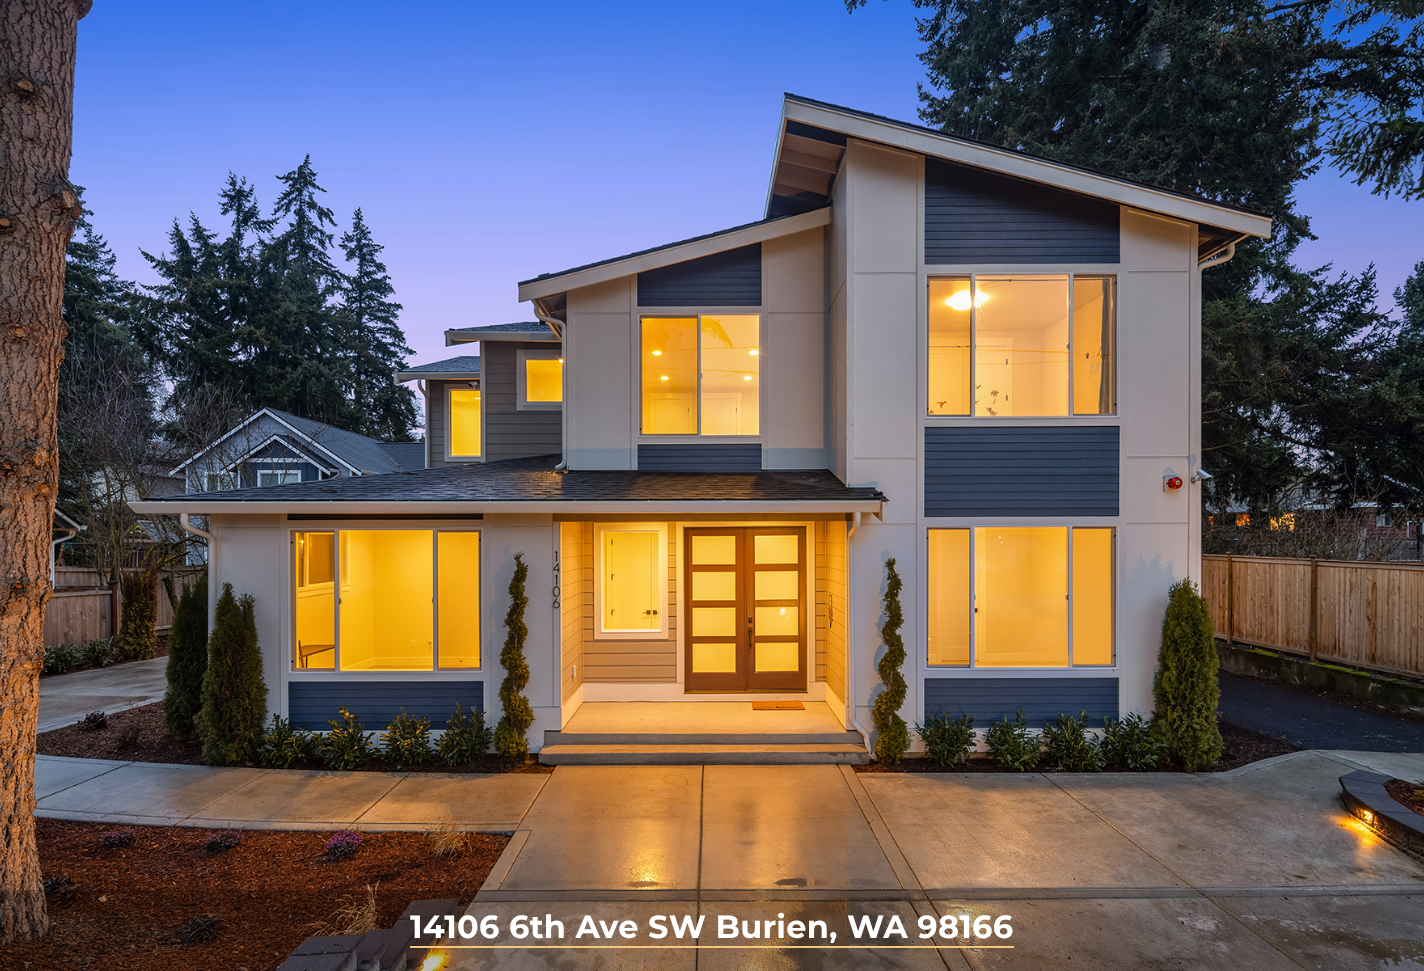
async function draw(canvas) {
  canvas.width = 1424
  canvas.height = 971
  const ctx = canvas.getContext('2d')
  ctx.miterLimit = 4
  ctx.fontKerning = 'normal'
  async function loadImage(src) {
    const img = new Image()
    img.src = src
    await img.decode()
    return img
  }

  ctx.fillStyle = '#fff'
  ctx.fillRect(0, 0, 1424, 971)
  ctx.drawImage(await loadImage('image0.png'), 0, 0, 1424, 971)
  ctx.fillStyle = '#00000040'
  ctx.fillRect(0, 890, 1424, 81)
  ctx.letterSpacing = '0.25px'
  ctx.font = 'bold 32px Montserrat'
  ctx.fillStyle = '#fff'
  ctx.fillText('14106 6th Ave SW Burien, WA 98166', 410, 938)
  ctx.fillStyle = '#f4c87c'
  ctx.fillRect(410, 946, 604, 2)
}

draw(document.querySelector('canvas'))
